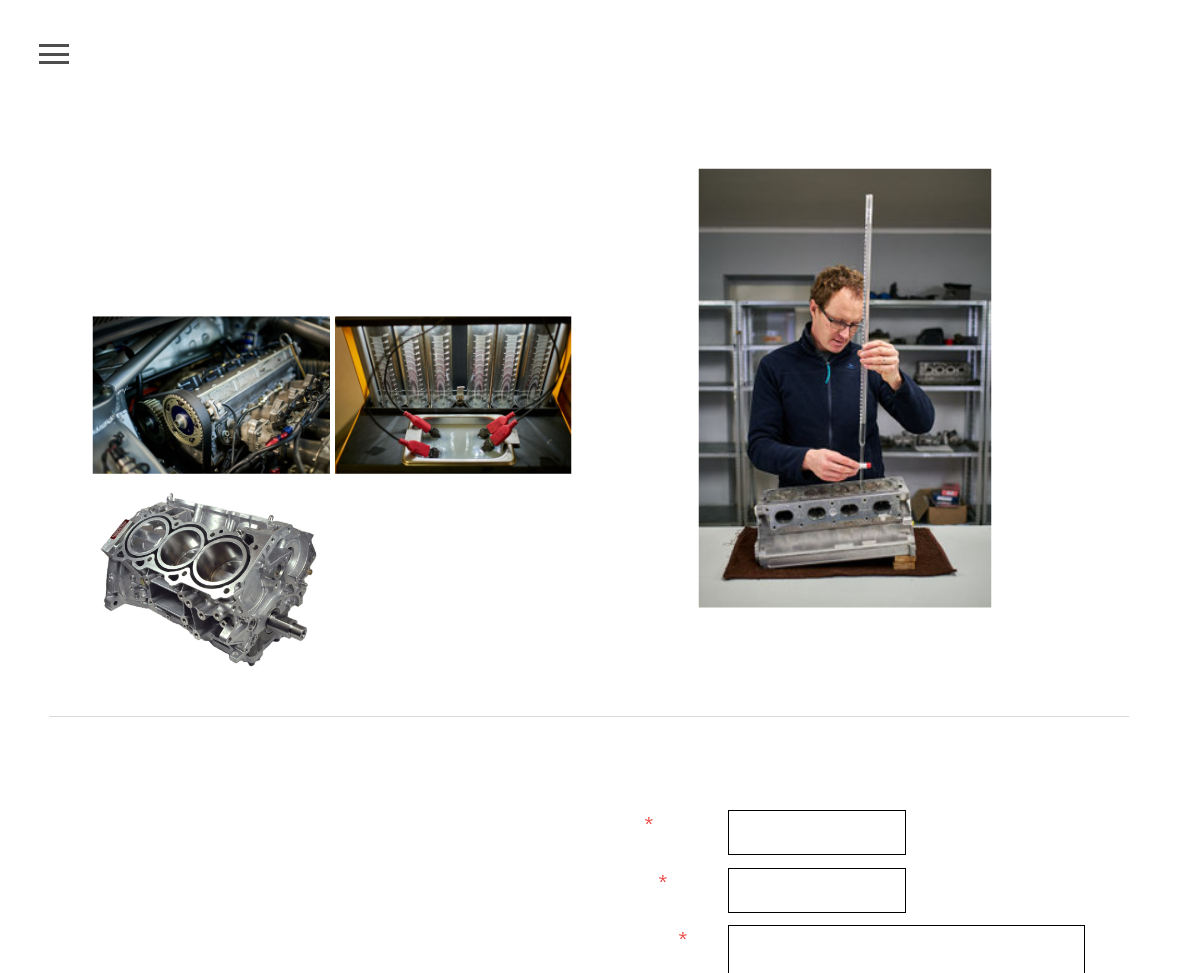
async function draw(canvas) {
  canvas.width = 1177
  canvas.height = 973
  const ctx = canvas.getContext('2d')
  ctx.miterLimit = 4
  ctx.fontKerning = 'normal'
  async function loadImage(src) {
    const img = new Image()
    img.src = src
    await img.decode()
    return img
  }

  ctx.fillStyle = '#fff'
  ctx.fillRect(0, 0, 1177, 973)
  ctx.fillStyle = '#4e4e4e'
  ctx.fillRect(39, 53, 30, 3)
  ctx.fillRect(39, 44, 30, 3)
  ctx.fillRect(39, 61, 30, 3)
  ctx.drawImage(await loadImage('image0.png'), 92, 316, 238, 158)
  ctx.drawImage(await loadImage('image1.png'), 335, 316, 237, 158)
  ctx.drawImage(await loadImage('image2.png'), 100, 493, 217, 176)
  ctx.drawImage(await loadImage('image3.png'), 698, 168, 294, 440)
  ctx.fillStyle = '#d9d9d9'
  ctx.fillRect(49, 716, 1080, 1)
  ctx.font = '20px Abel'
  ctx.fillStyle = '#eb433e'
  ctx.fillText('*', 644, 831)
  ctx.strokeStyle = '#000'
  ctx.strokeRect(728.5, 810.5, 177, 44)
  ctx.fillText('*', 658, 889)
  ctx.strokeRect(728.5, 868.5, 177, 44)
  ctx.fillText('*', 678, 946)
  ctx.strokeRect(728.5, 925.5, 356, 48)
}

draw(document.querySelector('canvas'))
